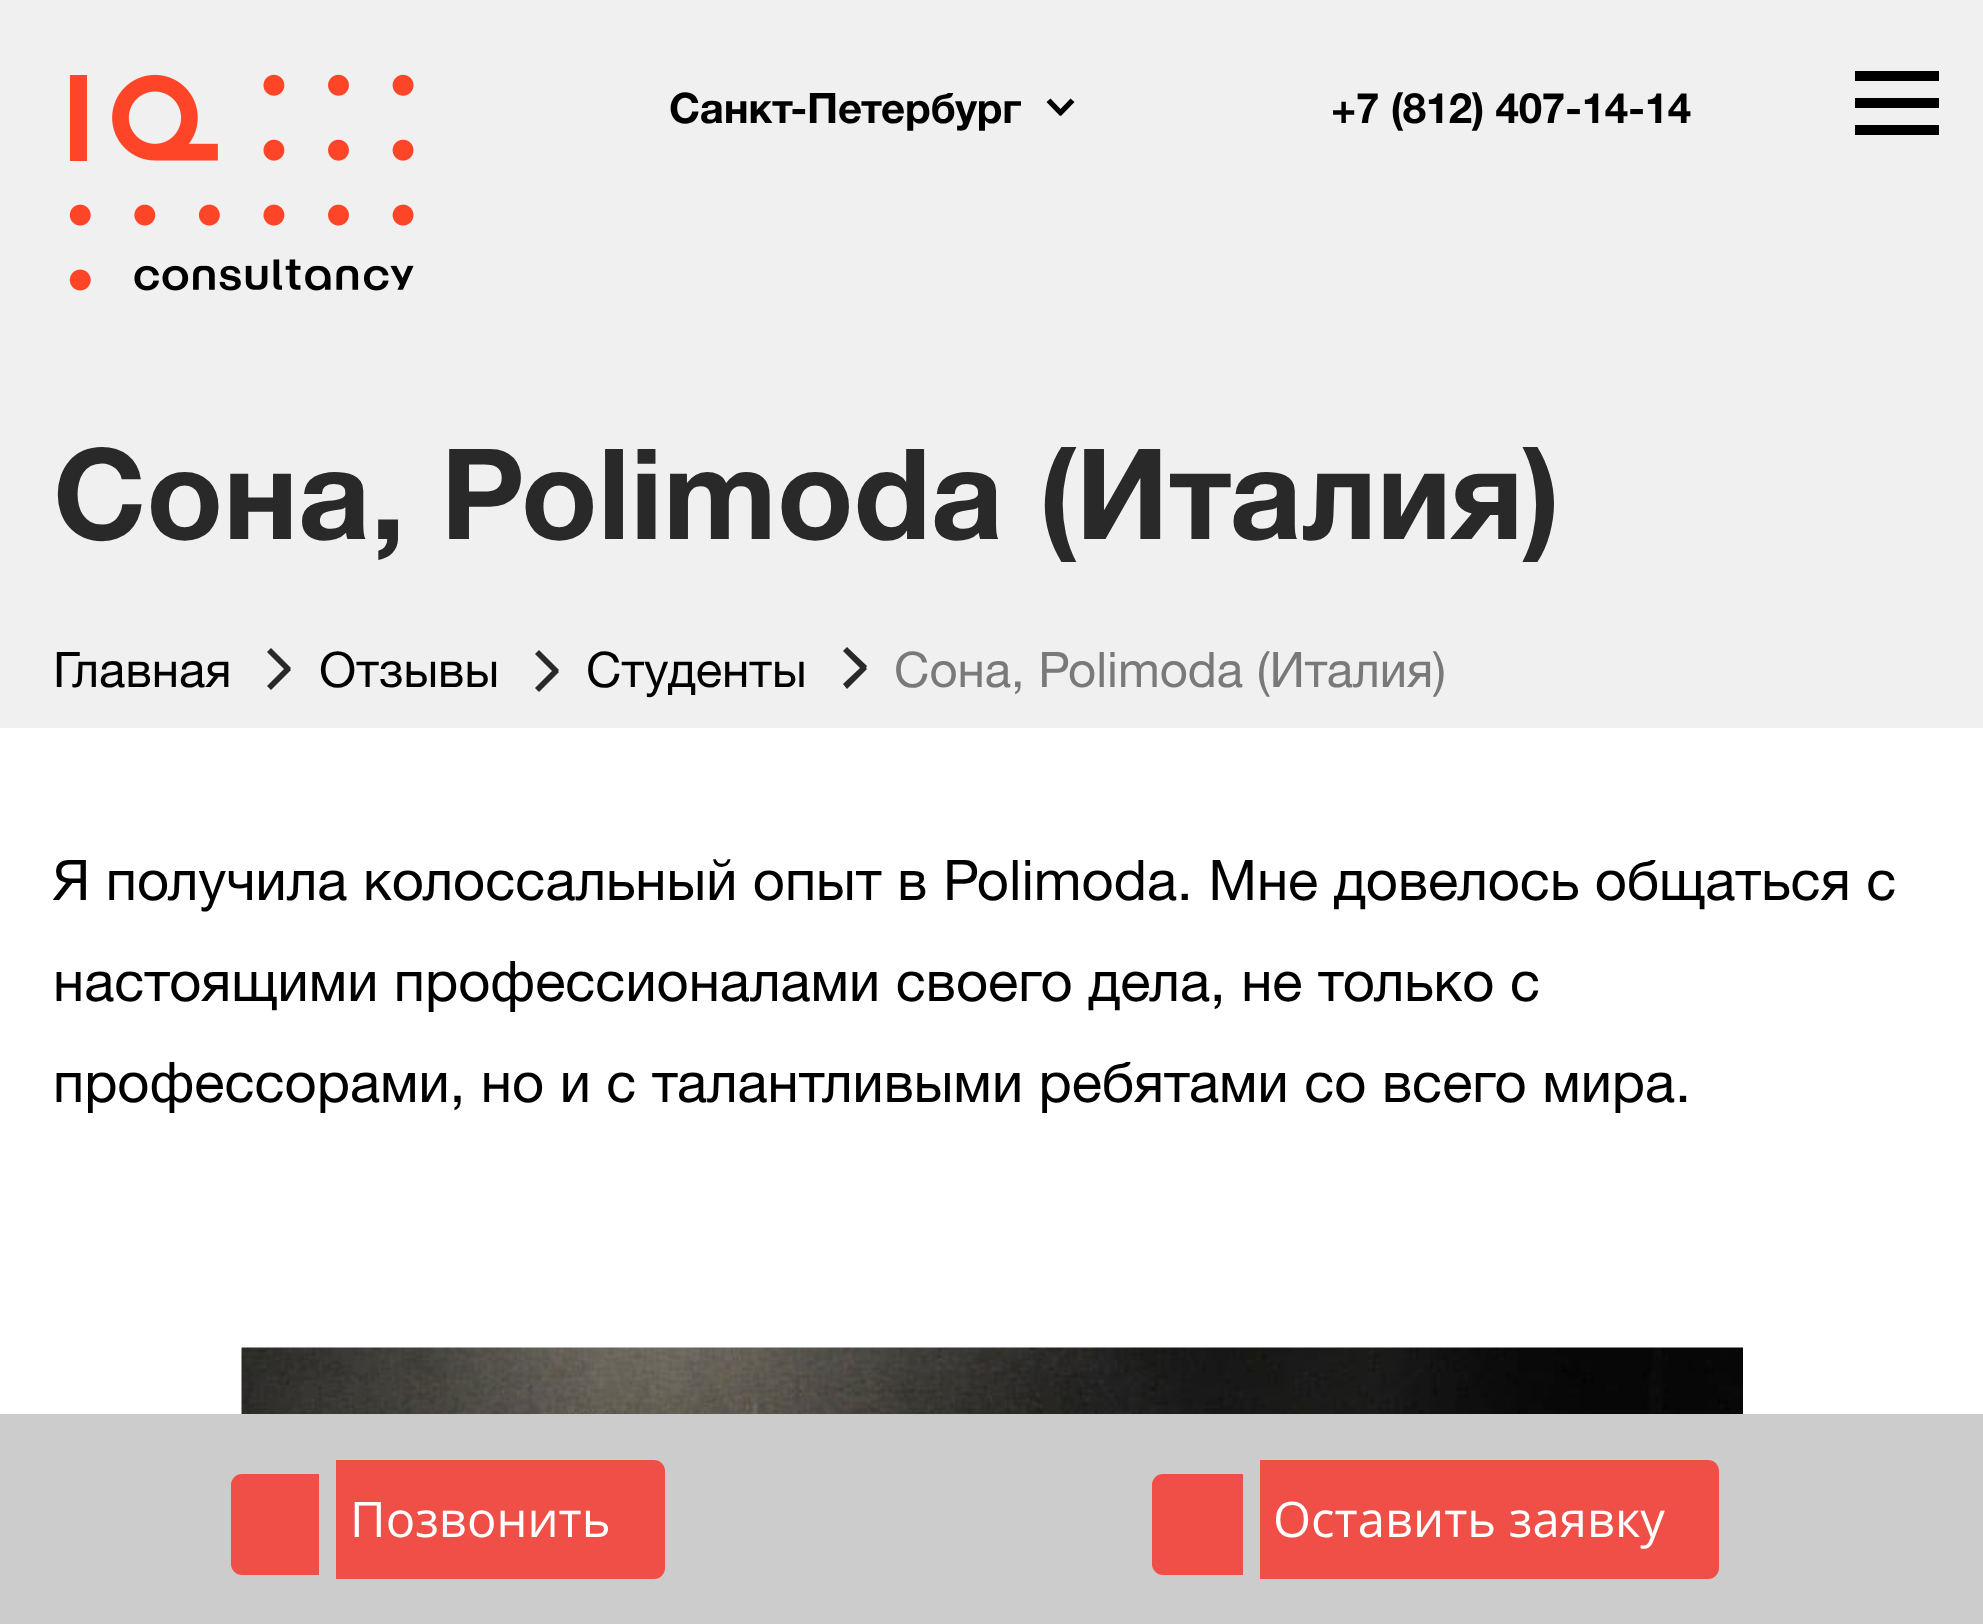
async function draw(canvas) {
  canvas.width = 1983
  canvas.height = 1624
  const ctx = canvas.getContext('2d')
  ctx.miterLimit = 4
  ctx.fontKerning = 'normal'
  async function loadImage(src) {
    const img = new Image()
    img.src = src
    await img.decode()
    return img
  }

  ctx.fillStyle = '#fff'
  ctx.fillRect(0, 0, 1983, 1624)
  ctx.fillStyle = '#f0f0f0'
  ctx.fillRect(0, 0, 1983, 728)
  ctx.drawImage(await loadImage('image0.png'), 69, 74, 345, 217)
  ctx.letterSpacing = '-0.25px'
  ctx.font = 'bold 42px "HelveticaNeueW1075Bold"'
  ctx.fillStyle = '#000'
  ctx.fillText('Санкт-Петербург', 669, 123)
  ctx.beginPath()
  ctx.moveTo(1074.5, 102)
  ctx.lineTo(1070.5, 98.5)
  ctx.lineTo(1060.5, 109)
  ctx.lineTo(1050.5, 98.5)
  ctx.lineTo(1046.5, 102)
  ctx.lineTo(1060, 116)
  ctx.lineTo(1060.5, 115.5)
  ctx.lineTo(1061, 116)
  ctx.closePath()
  ctx.fill()
  ctx.fillText('+7 (812) 407-14-14', 1331, 123)
  ctx.beginPath()
  ctx.moveTo(1855, 108)
  ctx.lineTo(1939, 108)
  ctx.lineTo(1939, 98)
  ctx.lineTo(1855, 98)
  ctx.closePath()
  ctx.moveTo(1855, 71)
  ctx.lineTo(1855, 81)
  ctx.lineTo(1939, 81)
  ctx.lineTo(1939, 71)
  ctx.closePath()
  ctx.moveTo(1855, 135)
  ctx.lineTo(1939, 135)
  ctx.lineTo(1939, 125)
  ctx.lineTo(1855, 125)
  ctx.closePath()
  ctx.fill()
  ctx.letterSpacing = '0px'
  ctx.font = 'bold 126px "HelveticaNeueW1075Bold"'
  ctx.fillStyle = '#292929'
  ctx.fillText('Сона, Polimoda (Италия)', 53, 539)
  ctx.font = '49px "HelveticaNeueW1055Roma"'
  ctx.fillStyle = '#000'
  ctx.fillText('Главная', 53, 687)
  ctx.fillStyle = '#292929'
  ctx.beginPath()
  ctx.moveTo(271, 648)
  ctx.lineTo(267, 652)
  ctx.lineTo(284, 669)
  ctx.lineTo(267, 686)
  ctx.lineTo(271, 690)
  ctx.lineTo(291, 670)
  ctx.lineTo(290, 669)
  ctx.lineTo(291, 668)
  ctx.closePath()
  ctx.fill()
  ctx.fillStyle = '#000'
  ctx.fillText('Отзывы', 319, 687)
  ctx.fillStyle = '#292929'
  ctx.beginPath()
  ctx.moveTo(539, 650)
  ctx.lineTo(535, 654)
  ctx.lineTo(552, 671)
  ctx.lineTo(535, 688)
  ctx.lineTo(539, 692)
  ctx.lineTo(559, 672)
  ctx.lineTo(558, 671)
  ctx.lineTo(559, 670)
  ctx.closePath()
  ctx.fill()
  ctx.fillStyle = '#000'
  ctx.fillText('Студенты', 586, 687)
  ctx.fillStyle = '#292929'
  ctx.beginPath()
  ctx.moveTo(847, 647)
  ctx.lineTo(843, 651)
  ctx.lineTo(860, 668)
  ctx.lineTo(843, 684)
  ctx.lineTo(847, 689)
  ctx.lineTo(867, 669)
  ctx.lineTo(866, 668)
  ctx.lineTo(867, 666)
  ctx.closePath()
  ctx.fill()
  ctx.fillStyle = '#797979'
  ctx.fillText('Сона, Polimoda (Италия)', 894, 687)
  ctx.font = '56px "HelveticaNeueW1055Roma"'
  ctx.fillStyle = '#000'
  ctx.fillText('Я получила колоссальный опыт в Polimoda. Мне довелось общаться с', 53, 900)
  ctx.fillText('настоящими профессионалами своего дела, не только с', 53, 1001)
  ctx.fillText('профессорами, но и с талантливыми ребятами со всего мира.', 53, 1102)
  ctx.drawImage(await loadImage('image1.png'), 241, 1347, 1502, 67)
  ctx.fillStyle = '#ccc'
  ctx.fillRect(0, 1414, 1983, 210)
  ctx.fillStyle = '#ef4f47'
  ctx.beginPath()
  ctx.roundRect(350, 1460, 315, 119, [0, 11, 11, 0])
  ctx.fill()
  ctx.font = '49px Open Sans'
  ctx.fillStyle = '#fff'
  ctx.fillText('Позвонить', 350, 1537)
  ctx.fillStyle = '#ef4f47'
  ctx.beginPath()
  ctx.roundRect(231, 1474, 88, 101, [11, 0, 0, 11])
  ctx.fill()
  ctx.fillRect(336, 1460, 14, 119)
  ctx.beginPath()
  ctx.roundRect(1274, 1460, 445, 119, [0, 11, 11, 0])
  ctx.fill()
  ctx.fillStyle = '#fff'
  ctx.fillText('Оставить заявку', 1273, 1537)
  ctx.fillStyle = '#ef4f47'
  ctx.beginPath()
  ctx.roundRect(1152, 1474, 91, 101, [11, 0, 0, 11])
  ctx.fill()
  ctx.fillRect(1260, 1460, 14, 119)
}

draw(document.querySelector('canvas'))
